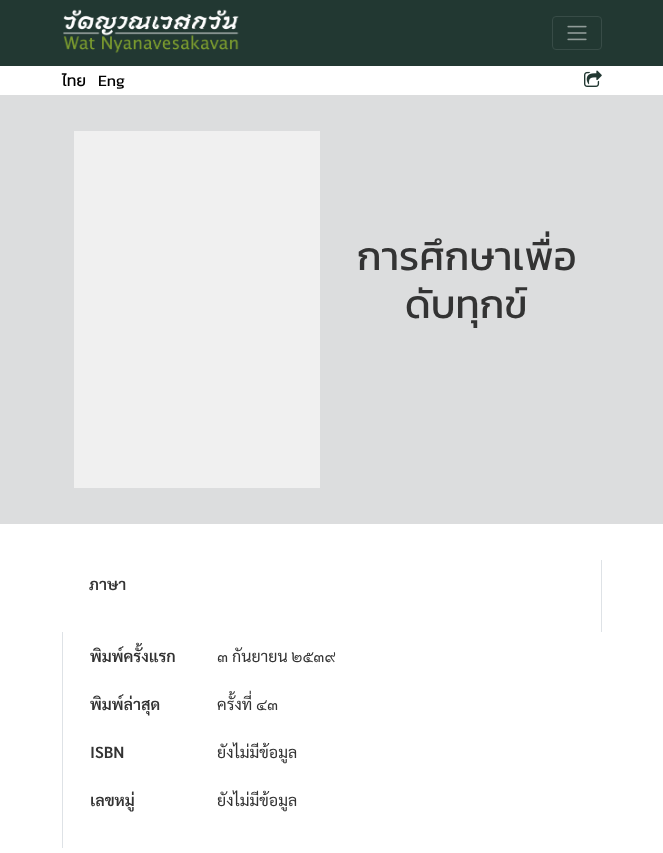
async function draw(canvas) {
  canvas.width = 663
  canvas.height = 853
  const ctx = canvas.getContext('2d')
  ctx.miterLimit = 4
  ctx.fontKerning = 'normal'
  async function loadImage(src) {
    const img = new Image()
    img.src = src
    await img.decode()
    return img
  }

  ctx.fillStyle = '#fff'
  ctx.fillRect(0, 0, 663, 853)
  ctx.fillStyle = '#223832'
  ctx.fillRect(0, 0, 663, 66)
  ctx.drawImage(await loadImage('image0.png'), 63, 9, 176, 44)
  ctx.beginPath()
  ctx.roundRect(552.5, 16.5, 49, 33, 3.5)
  ctx.strokeStyle = '#384c47'
  ctx.stroke()
  ctx.drawImage(await loadImage('image1.png'), 567, 25, 20, 16)
  ctx.font = '16px Kanit'
  ctx.fillStyle = '#000'
  ctx.fillText('ไทย', 62, 86)
  ctx.fillText('Eng', 98, 86)
  ctx.drawImage(await loadImage('image2.png'), 584, 70, 18, 17)
  ctx.fillStyle = '#dcddde'
  ctx.fillRect(0, 95, 663, 429)
  ctx.fillStyle = '#f0f0f0'
  ctx.fillRect(74, 131, 246, 357)
  ctx.font = '40px Kanit'
  ctx.fillStyle = '#333'
  ctx.fillText('การศึกษาเพื่อ', 357, 270)
  ctx.fillText('ดับทุกข์', 405, 318)
  ctx.fillStyle = '#dee2e6'
  ctx.fillRect(601, 560, 1, 72)
  ctx.font = '600 16px Sarabun'
  ctx.fillStyle = '#333'
  ctx.fillText('ภาษา', 89, 590)
  ctx.fillStyle = '#dee2e6'
  ctx.fillRect(62, 632, 1, 216)
  ctx.fillStyle = '#333'
  ctx.fillText('พิมพ์ครั้งแรก', 90, 662)
  ctx.font = '16px Sarabun'
  ctx.fillText('๓ กันยายน ๒๕๓๙', 217, 662)
  ctx.font = '600 16px Sarabun'
  ctx.fillText('พิมพ์ล่าสุด', 90, 710)
  ctx.font = '16px Sarabun'
  ctx.fillText('ครั้งที่ ๔๓', 217, 710)
  ctx.font = '600 16px Sarabun'
  ctx.fillText('ISBN', 90, 758)
  ctx.font = '16px Sarabun'
  ctx.fillText('ยังไม่มีข้อมูล', 217, 758)
  ctx.font = '600 16px Sarabun'
  ctx.fillText('เลขหมู่', 90, 806)
  ctx.font = '16px Sarabun'
  ctx.fillText('ยังไม่มีข้อมูล', 217, 806)
}

draw(document.querySelector('canvas'))
